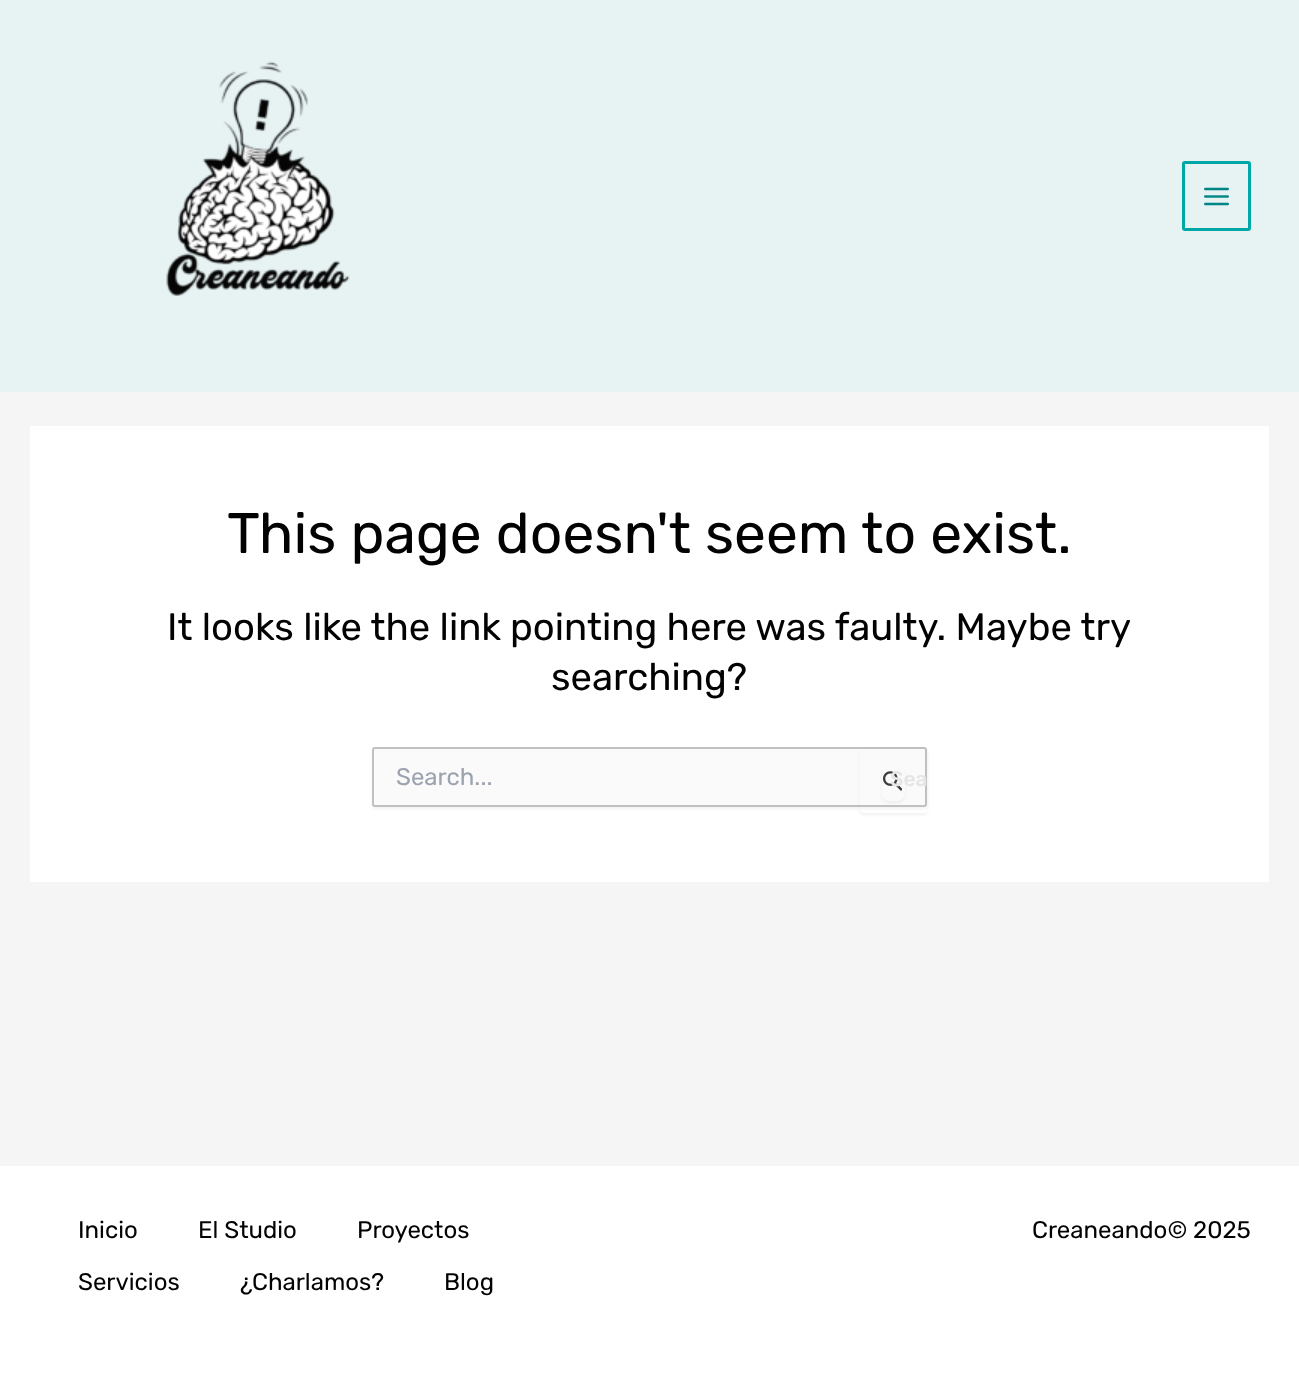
async function draw(canvas) {
  canvas.width = 1299
  canvas.height = 1379
  const ctx = canvas.getContext('2d')
  ctx.miterLimit = 4
  ctx.fontKerning = 'normal'
  async function loadImage(src) {
    const img = new Image()
    img.src = src
    await img.decode()
    return img
  }

  ctx.fillStyle = '#f5f5f5'
  ctx.fillRect(0, 0, 1299, 1379)
  ctx.fillStyle = '#e7f2f3'
  ctx.fillRect(0, 0, 1299, 392)
  ctx.drawImage(await loadImage('image0.png'), 166, 61, 184, 235)
  ctx.beginPath()
  ctx.roundRect(1183.5, 162.5, 66, 67, 1.5)
  ctx.strokeStyle = '#00a7a7'
  ctx.lineWidth = 3
  ctx.stroke()
  ctx.drawImage(await loadImage('image1.png'), 1204, 187, 25, 19)
  ctx.fillStyle = '#fff'
  ctx.fillRect(30, 426, 1239, 456)
  ctx.font = '57px Rubik'
  ctx.fillStyle = '#020202'
  ctx.fillText('This page doesn\'t seem to exist.', 227, 553)
  ctx.font = '38.25px Rubik'
  ctx.fillText('It looks like the link pointing here was faulty. Maybe try', 167, 640)
  ctx.fillText('searching?', 551, 690)
  ctx.fillStyle = '#0000000d'
  ctx.filter = 'blur(1.5px)'
  ctx.beginPath()
  ctx.roundRect(372, 749, 555, 60, 3)
  ctx.fill()
  ctx.filter = 'none'
  ctx.fillStyle = '#fafafa'
  ctx.beginPath()
  ctx.roundRect(373, 748, 553, 58, 2)
  ctx.fill()
  ctx.strokeStyle = '#c0c0c0'
  ctx.lineWidth = 2
  ctx.stroke()
  ctx.font = '24px Rubik'
  ctx.fillStyle = '#9ca3af'
  ctx.fillText('Search...', 396, 785)
  ctx.save()
  ctx.beginPath()
  ctx.moveTo(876, 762)
  ctx.lineTo(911, 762)
  ctx.lineTo(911, 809)
  ctx.lineTo(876, 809)
  ctx.closePath()
  ctx.moveTo(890, 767)
  ctx.lineTo(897, 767)
  ctx.bezierCurveTo(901.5, 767, 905, 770.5, 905, 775)
  ctx.lineTo(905, 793)
  ctx.bezierCurveTo(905, 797.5, 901.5, 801, 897, 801)
  ctx.lineTo(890, 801)
  ctx.bezierCurveTo(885.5, 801, 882, 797.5, 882, 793)
  ctx.lineTo(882, 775)
  ctx.bezierCurveTo(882, 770.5, 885.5, 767, 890, 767)
  ctx.closePath()
  ctx.clip('evenodd')
  ctx.fillStyle = '#0000000d'
  ctx.filter = 'blur(1.5px)'
  ctx.beginPath()
  ctx.roundRect(882, 768, 23, 35, 8)
  ctx.fill()
  ctx.filter = 'none'
  ctx.restore()
  ctx.drawImage(await loadImage('image2.png'), 883, 771, 19, 20)
  ctx.save()
  ctx.beginPath()
  ctx.moveTo(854, 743)
  ctx.lineTo(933, 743)
  ctx.lineTo(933, 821)
  ctx.lineTo(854, 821)
  ctx.closePath()
  ctx.moveTo(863, 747)
  ctx.lineTo(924, 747)
  ctx.bezierCurveTo(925.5, 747, 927, 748.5, 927, 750)
  ctx.lineTo(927, 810)
  ctx.bezierCurveTo(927, 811.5, 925.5, 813, 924, 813)
  ctx.lineTo(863, 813)
  ctx.bezierCurveTo(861.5, 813, 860, 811.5, 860, 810)
  ctx.lineTo(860, 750)
  ctx.bezierCurveTo(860, 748.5, 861.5, 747, 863, 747)
  ctx.closePath()
  ctx.clip('evenodd')
  ctx.fillStyle = '#0000000d'
  ctx.filter = 'blur(1.5px)'
  ctx.beginPath()
  ctx.roundRect(860, 749, 67, 66, 3)
  ctx.fill()
  ctx.filter = 'none'
  ctx.restore()
  ctx.font = '500 21px Rubik'
  ctx.fillStyle = '#e5e5e5'
  ctx.fillText('Sea', 890, 786)
  ctx.fillStyle = '#fff'
  ctx.fillRect(0, 1166, 1299, 213)
  ctx.font = '24px Rubik'
  ctx.fillStyle = '#020202'
  ctx.fillText('Inicio', 78, 1238)
  ctx.fillText('El Studio', 198, 1238)
  ctx.fillText('Proyectos', 357, 1238)
  ctx.fillText('Servicios', 78, 1290)
  ctx.fillText('¿Charlamos?', 240, 1290)
  ctx.fillText('Blog', 444, 1290)
  ctx.fillText('Creaneando© 2025', 1032, 1238)
}

draw(document.querySelector('canvas'))
